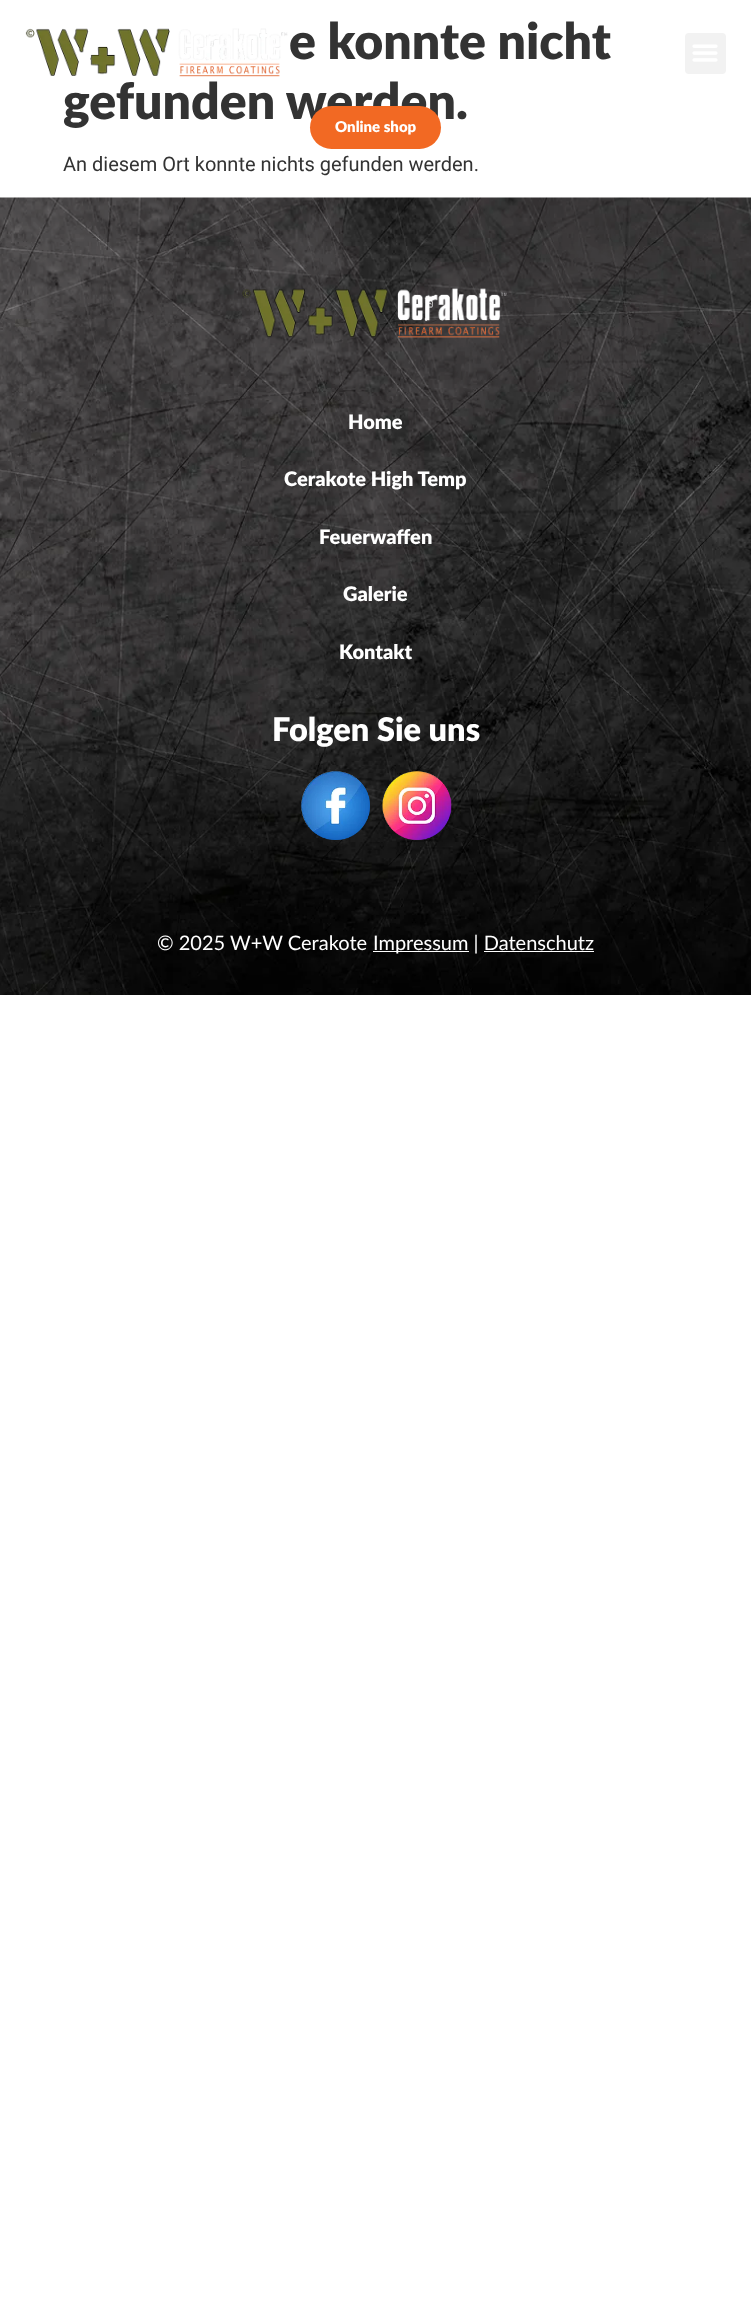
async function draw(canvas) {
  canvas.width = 751
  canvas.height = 2311
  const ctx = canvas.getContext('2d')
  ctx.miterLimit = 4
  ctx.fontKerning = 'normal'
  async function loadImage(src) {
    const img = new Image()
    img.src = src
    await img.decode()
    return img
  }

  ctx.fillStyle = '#fff'
  ctx.fillRect(0, 0, 751, 2311)
  ctx.font = '800 50px Lato'
  ctx.fillStyle = '#333'
  ctx.fillText('e konnte nicht', 289, 59)
  ctx.fillText('gefunden werden.', 63, 119)
  ctx.font = '20px Roboto'
  ctx.fillText('An diesem Ort konnte nichts gefunden werden.', 63, 171)
  ctx.drawImage(await loadImage('image0.png'), 25, 28, 263, 49)
  ctx.fillStyle = '#f2f2f2'
  ctx.beginPath()
  ctx.roundRect(685, 33, 41, 41, 4)
  ctx.fill()
  ctx.drawImage(await loadImage('image1.png'), 692, 44, 26, 18)
  ctx.fillStyle = '#f26923'
  ctx.beginPath()
  ctx.roundRect(310, 106, 131, 43, 21.5)
  ctx.fill()
  ctx.font = '800 15px Lato'
  ctx.fillStyle = '#fff'
  ctx.fillText('Online shop', 335, 132)
  ctx.drawImage(await loadImage('image2.png'), 0, 197, 751, 798)
  ctx.drawImage(await loadImage('image3.png'), 242, 288, 266, 50)
  ctx.font = '800 20px Lato'
  ctx.fillText('Home', 348, 429)
  ctx.fillText('Cerakote High Temp', 284, 486)
  ctx.fillText('Feuerwaffen', 319, 544)
  ctx.fillText('Galerie', 343, 601)
  ctx.fillText('Kontakt', 339, 659)
  ctx.font = '800 32.5px Lato'
  ctx.fillText('Folgen Sie uns', 272, 741)
  ctx.drawImage(await loadImage('image4.png'), 301, 771, 69, 69)
  ctx.drawImage(await loadImage('image5.png'), 382, 771, 70, 69)
  ctx.font = '20px Lato'
  ctx.fillText('© 2025 W+W Cerakote', 157, 950)
  ctx.fillRect(373, 951, 96, 1)
  ctx.fillText('Impressum | Datenschutz', 373, 950)
  ctx.fillRect(484, 951, 110, 1)
}

draw(document.querySelector('canvas'))
